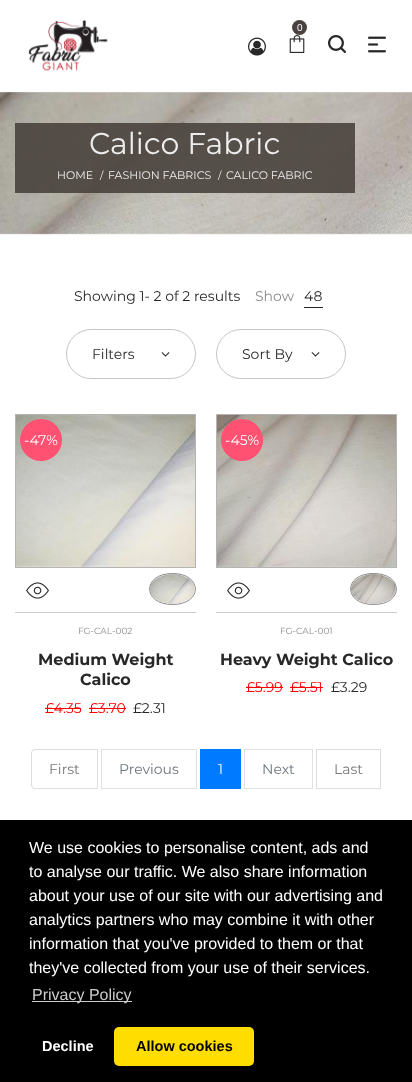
async function draw(canvas) {
  canvas.width = 412
  canvas.height = 1082
  const ctx = canvas.getContext('2d')
  ctx.miterLimit = 4
  ctx.fontKerning = 'normal'
  async function loadImage(src) {
    const img = new Image()
    img.src = src
    await img.decode()
    return img
  }

  ctx.fillStyle = '#fff'
  ctx.fillRect(0, 0, 412, 1082)
  ctx.drawImage(await loadImage('image0.png'), 28, 20, 80, 51)
  ctx.fillStyle = '#4a4141'
  ctx.beginPath()
  ctx.arc(299.5, 27.5, 7.5, 0, 2 * Math.PI)
  ctx.fill()
  ctx.font = '10px Liberation Sans'
  ctx.fillStyle = '#fff'
  ctx.fillText('0', 297, 31)
  ctx.drawImage(await loadImage('image1.png'), 289, 35, 16, 18)
  ctx.drawImage(await loadImage('image2.png'), 248, 37, 18, 19)
  ctx.drawImage(await loadImage('image3.png'), 328, 35, 18, 18)
  ctx.drawImage(await loadImage('image4.png'), 368, 36, 18, 17)
  ctx.drawImage(await loadImage('image5.png'), 0, 92, 412, 143)
  ctx.fillStyle = '#49423de6'
  ctx.fillRect(15, 123, 340, 70)
  ctx.font = '30px Montserrat'
  ctx.fillStyle = '#eeeded'
  ctx.fillText('Calico Fabric', 89, 154)
  ctx.font = '11px Montserrat'
  ctx.fillText('HOME', 57, 179)
  ctx.font = '10px Montserrat'
  ctx.fillText('/', 100, 179)
  ctx.font = '11px Montserrat'
  ctx.fillText('FASHION FABRICS', 108, 179)
  ctx.font = '10px Montserrat'
  ctx.fillText('/', 218, 179)
  ctx.font = '11px Montserrat'
  ctx.fillText('CALICO FABRIC', 226, 179)
  ctx.font = '14px Montserrat'
  ctx.fillStyle = '#282828'
  ctx.fillText('Showing 1- 2 of 2 results', 74, 301)
  ctx.fillStyle = '#8a8a8a'
  ctx.fillText('Show', 255, 301)
  ctx.fillStyle = '#282828'
  ctx.fillRect(304, 307, 19, 1)
  ctx.fillText('48', 304, 301)
  ctx.beginPath()
  ctx.roundRect(66.5, 329.5, 129, 49, 24.5)
  ctx.strokeStyle = '#c5c5c5'
  ctx.stroke()
  ctx.fillText('Filters', 92, 359)
  ctx.drawImage(await loadImage('image6.png'), 161, 352, 9, 5)
  ctx.beginPath()
  ctx.roundRect(216.5, 329.5, 129, 49, 24.5)
  ctx.stroke()
  ctx.fillText('Sort By', 242, 359)
  ctx.drawImage(await loadImage('image6.png'), 311, 352, 9, 5)
  ctx.strokeStyle = '#b4b4b4'
  ctx.strokeRect(15.5, 414.5, 180, 153)
  ctx.drawImage(await loadImage('image7.png'), 16, 415, 179, 152)
  ctx.fillStyle = '#ff5171'
  ctx.beginPath()
  ctx.arc(41, 440, 21, 0, 2 * Math.PI)
  ctx.fill()
  ctx.fillStyle = '#fff'
  ctx.fillText('-47%', 24, 445)
  ctx.fillStyle = '#ccc'
  ctx.fillRect(15, 612, 181, 1)
  ctx.drawImage(await loadImage('image8.png'), 26, 582, 23, 17)
  ctx.beginPath()
  ctx.moveTo(172.5, 573.5)
  ctx.bezierCurveTo(203, 573.5, 203, 604.5, 172.5, 604.5)
  ctx.bezierCurveTo(142, 604.5, 142, 573.5, 172.5, 573.5)
  ctx.closePath()
  ctx.strokeStyle = '#8a8a8a'
  ctx.stroke()
  ctx.drawImage(await loadImage('image9.png'), 150, 574, 45, 30)
  ctx.font = '9px Montserrat'
  ctx.fillStyle = '#8a8a8a'
  ctx.fillText('FG-CAL-002', 78, 634)
  ctx.font = 'bold 16px Montserrat'
  ctx.fillStyle = '#282828'
  ctx.fillText('Medium Weight', 38, 665)
  ctx.fillText('Calico', 80, 685)
  ctx.font = '14px Montserrat'
  ctx.fillStyle = '#f00'
  ctx.fillText('£4.35', 45, 713)
  ctx.fillRect(45, 708, 36, 1)
  ctx.fillText('£3.70', 89, 713)
  ctx.fillRect(89, 708, 37, 1)
  ctx.fillStyle = '#282828'
  ctx.fillText('£2.31', 133, 713)
  ctx.strokeStyle = '#b4b4b4'
  ctx.strokeRect(216.5, 414.5, 180, 153)
  ctx.drawImage(await loadImage('image10.png'), 217, 415, 179, 152)
  ctx.fillStyle = '#ff5171'
  ctx.beginPath()
  ctx.arc(242, 440, 21, 0, 2 * Math.PI)
  ctx.fill()
  ctx.fillStyle = '#fff'
  ctx.fillText('-45%', 225, 445)
  ctx.fillStyle = '#ccc'
  ctx.fillRect(216, 612, 181, 1)
  ctx.drawImage(await loadImage('image8.png'), 227, 582, 23, 17)
  ctx.beginPath()
  ctx.moveTo(373.5, 573.5)
  ctx.bezierCurveTo(404, 573.5, 404, 604.5, 373.5, 604.5)
  ctx.bezierCurveTo(343, 604.5, 343, 573.5, 373.5, 573.5)
  ctx.closePath()
  ctx.strokeStyle = '#8a8a8a'
  ctx.stroke()
  ctx.drawImage(await loadImage('image11.png'), 351, 574, 45, 30)
  ctx.font = '9px Montserrat'
  ctx.fillStyle = '#8a8a8a'
  ctx.fillText('FG-CAL-001', 280, 634)
  ctx.font = 'bold 16px Montserrat'
  ctx.fillStyle = '#282828'
  ctx.fillText('Heavy Weight Calico', 220, 665)
  ctx.font = '14px Montserrat'
  ctx.fillStyle = '#f00'
  ctx.fillText('£5.99', 246, 692)
  ctx.fillRect(246, 687, 37, 1)
  ctx.fillText('£5.51', 290, 692)
  ctx.fillRect(290, 687, 33, 1)
  ctx.fillStyle = '#282828'
  ctx.fillText('£3.29', 331, 692)
  ctx.beginPath()
  ctx.roundRect(31.5, 749.5, 66, 39, [3.5, 0, 0, 3.5])
  ctx.strokeStyle = '#ddd'
  ctx.stroke()
  ctx.fillStyle = '#777'
  ctx.fillText('First', 49, 774)
  ctx.strokeStyle = '#dee2e6'
  ctx.strokeRect(101.5, 749.5, 95, 39)
  ctx.fillStyle = '#6c757d'
  ctx.fillText('Previous', 119, 774)
  ctx.fillStyle = '#007bff'
  ctx.fillRect(200, 749, 41, 40)
  ctx.fillStyle = '#fff'
  ctx.fillText('1', 218, 774)
  ctx.strokeRect(244.5, 749.5, 68, 39)
  ctx.fillStyle = '#6c757d'
  ctx.fillText('Next', 262, 774)
  ctx.strokeStyle = '#ddd'
  ctx.strokeRect(316.5, 749.5, 64, 39)
  ctx.fillStyle = '#777'
  ctx.fillText('Last', 334, 774)
  ctx.fillStyle = '#000'
  ctx.fillRect(0, 820, 412, 262)
  ctx.font = '16px Liberation Sans'
  ctx.fillStyle = '#fff'
  ctx.fillText('We use cookies to personalise content, ads and', 29, 853)
  ctx.fillText('to analyse our traffic. We also share information', 29, 877)
  ctx.fillText('about your use of our site with our advertising and', 29, 901)
  ctx.fillText('analytics partners who may combine it with other', 29, 925)
  ctx.fillText('information that you\'ve provided to them or that', 29, 949)
  ctx.fillText('they\'ve collected from your use of their services.', 29, 973)
  ctx.fillStyle = '#ccc'
  ctx.fillRect(32, 1001, 100, 1)
  ctx.fillText('Privacy Policy', 32, 1000)
  ctx.font = 'bold 14.5px Liberation Sans'
  ctx.fillStyle = '#fff'
  ctx.fillText('Decline', 42, 1051)
  ctx.fillStyle = '#fd0'
  ctx.beginPath()
  ctx.roundRect(114, 1027, 140, 39, 5)
  ctx.fill()
  ctx.fillStyle = '#000'
  ctx.fillText('Allow cookies', 136, 1051)
}

draw(document.querySelector('canvas'))
